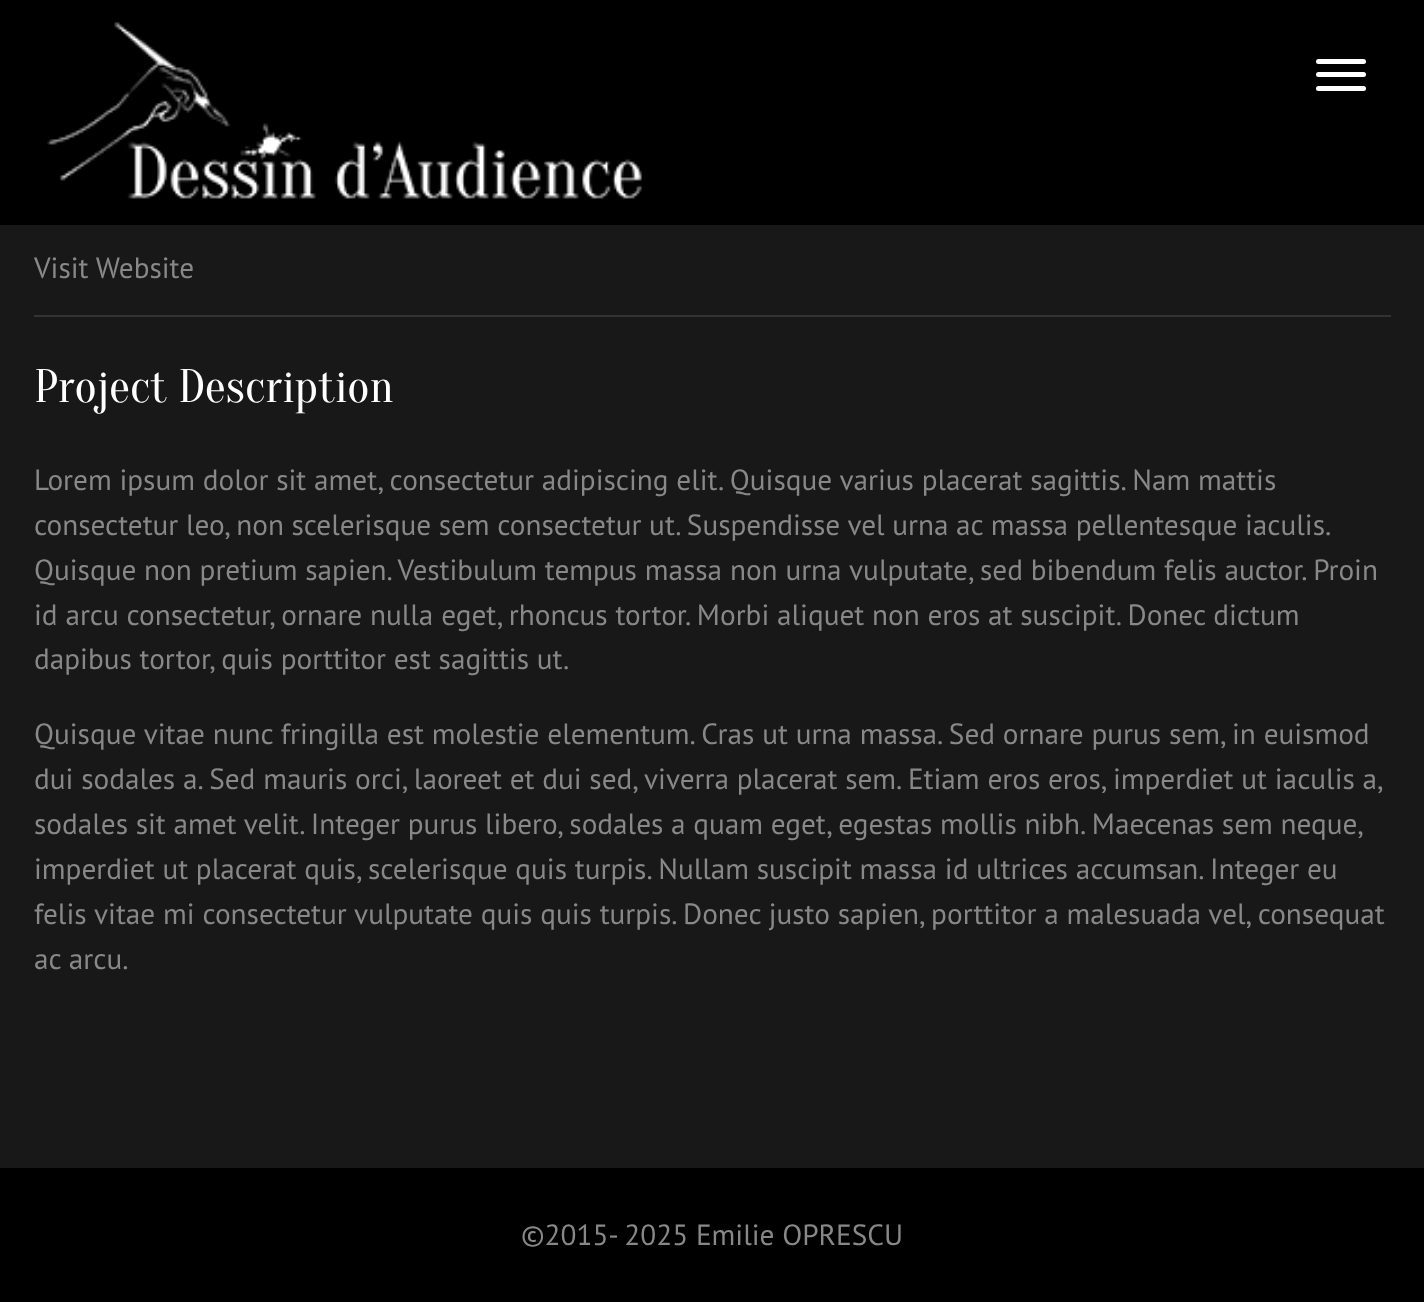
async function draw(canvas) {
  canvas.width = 1424
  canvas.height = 1302
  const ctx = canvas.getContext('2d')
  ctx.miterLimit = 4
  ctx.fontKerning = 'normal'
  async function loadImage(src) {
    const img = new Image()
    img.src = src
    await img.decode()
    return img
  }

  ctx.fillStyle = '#181818'
  ctx.fillRect(0, 0, 1424, 1302)
  ctx.fillStyle = '#000'
  ctx.fillRect(0, 0, 1424, 225)
  ctx.drawImage(await loadImage('image0.png'), 47, 22, 595, 177)
  ctx.fillStyle = '#fff'
  ctx.beginPath()
  ctx.roundRect(1316, 59, 50, 5, 2.5)
  ctx.fill()
  ctx.beginPath()
  ctx.roundRect(1316, 72, 50, 5, 2.5)
  ctx.fill()
  ctx.beginPath()
  ctx.roundRect(1316, 86, 50, 5, 2.5)
  ctx.fill()
  ctx.fillStyle = '#333'
  ctx.fillRect(34, 315, 1357, 2)
  ctx.font = '29.25px PT Sans'
  ctx.fillStyle = '#888'
  ctx.fillText('Visit Website', 34, 278)
  ctx.font = '47.25px Oranienbaum'
  ctx.fillStyle = '#fff'
  ctx.fillText('Project Description', 34, 402)
  ctx.font = '29.25px PT Sans'
  ctx.fillStyle = '#888'
  ctx.fillText('Lorem ipsum dolor sit amet, consectetur adipiscing elit. Quisque varius placerat sagittis. Nam mattis', 34, 490)
  ctx.wordSpacing = '-0.2px'
  ctx.fillText('consectetur leo, non scelerisque sem consectetur ut. Suspendisse vel urna ac massa pellentesque iaculis.', 34, 535)
  ctx.wordSpacing = '0px'
  ctx.fillText('Quisque non pretium sapien. Vestibulum tempus massa non urna vulputate, sed bibendum felis auctor. Proin', 34, 580)
  ctx.fillText('id arcu consectetur, ornare nulla eget, rhoncus tortor. Morbi aliquet non eros at suscipit. Donec dictum', 34, 625)
  ctx.fillText('dapibus tortor, quis porttitor est sagittis ut.', 34, 669)
  ctx.fillText('Quisque vitae nunc fringilla est molestie elementum. Cras ut urna massa. Sed ornare purus sem, in euismod', 34, 744)
  ctx.fillText('dui sodales a. Sed mauris orci, laoreet et dui sed, viverra placerat sem. Etiam eros eros, imperdiet ut iaculis a,', 34, 789)
  ctx.wordSpacing = '-0.1px'
  ctx.fillText('sodales sit amet velit. Integer purus libero, sodales a quam eget, egestas mollis nibh. Maecenas sem neque,', 34, 834)
  ctx.wordSpacing = '0px'
  ctx.fillText('imperdiet ut placerat quis, scelerisque quis turpis. Nullam suscipit massa id ultrices accumsan. Integer eu', 34, 879)
  ctx.fillText('felis vitae mi consectetur vulputate quis quis turpis. Donec justo sapien, porttitor a malesuada vel, consequat', 34, 924)
  ctx.fillText('ac arcu.', 34, 969)
  ctx.fillStyle = '#000'
  ctx.fillRect(0, 1168, 1424, 134)
  ctx.fillStyle = '#888'
  ctx.fillText('©2015- 2025 Emilie OPRESCU', 521, 1245)
}

draw(document.querySelector('canvas'))
